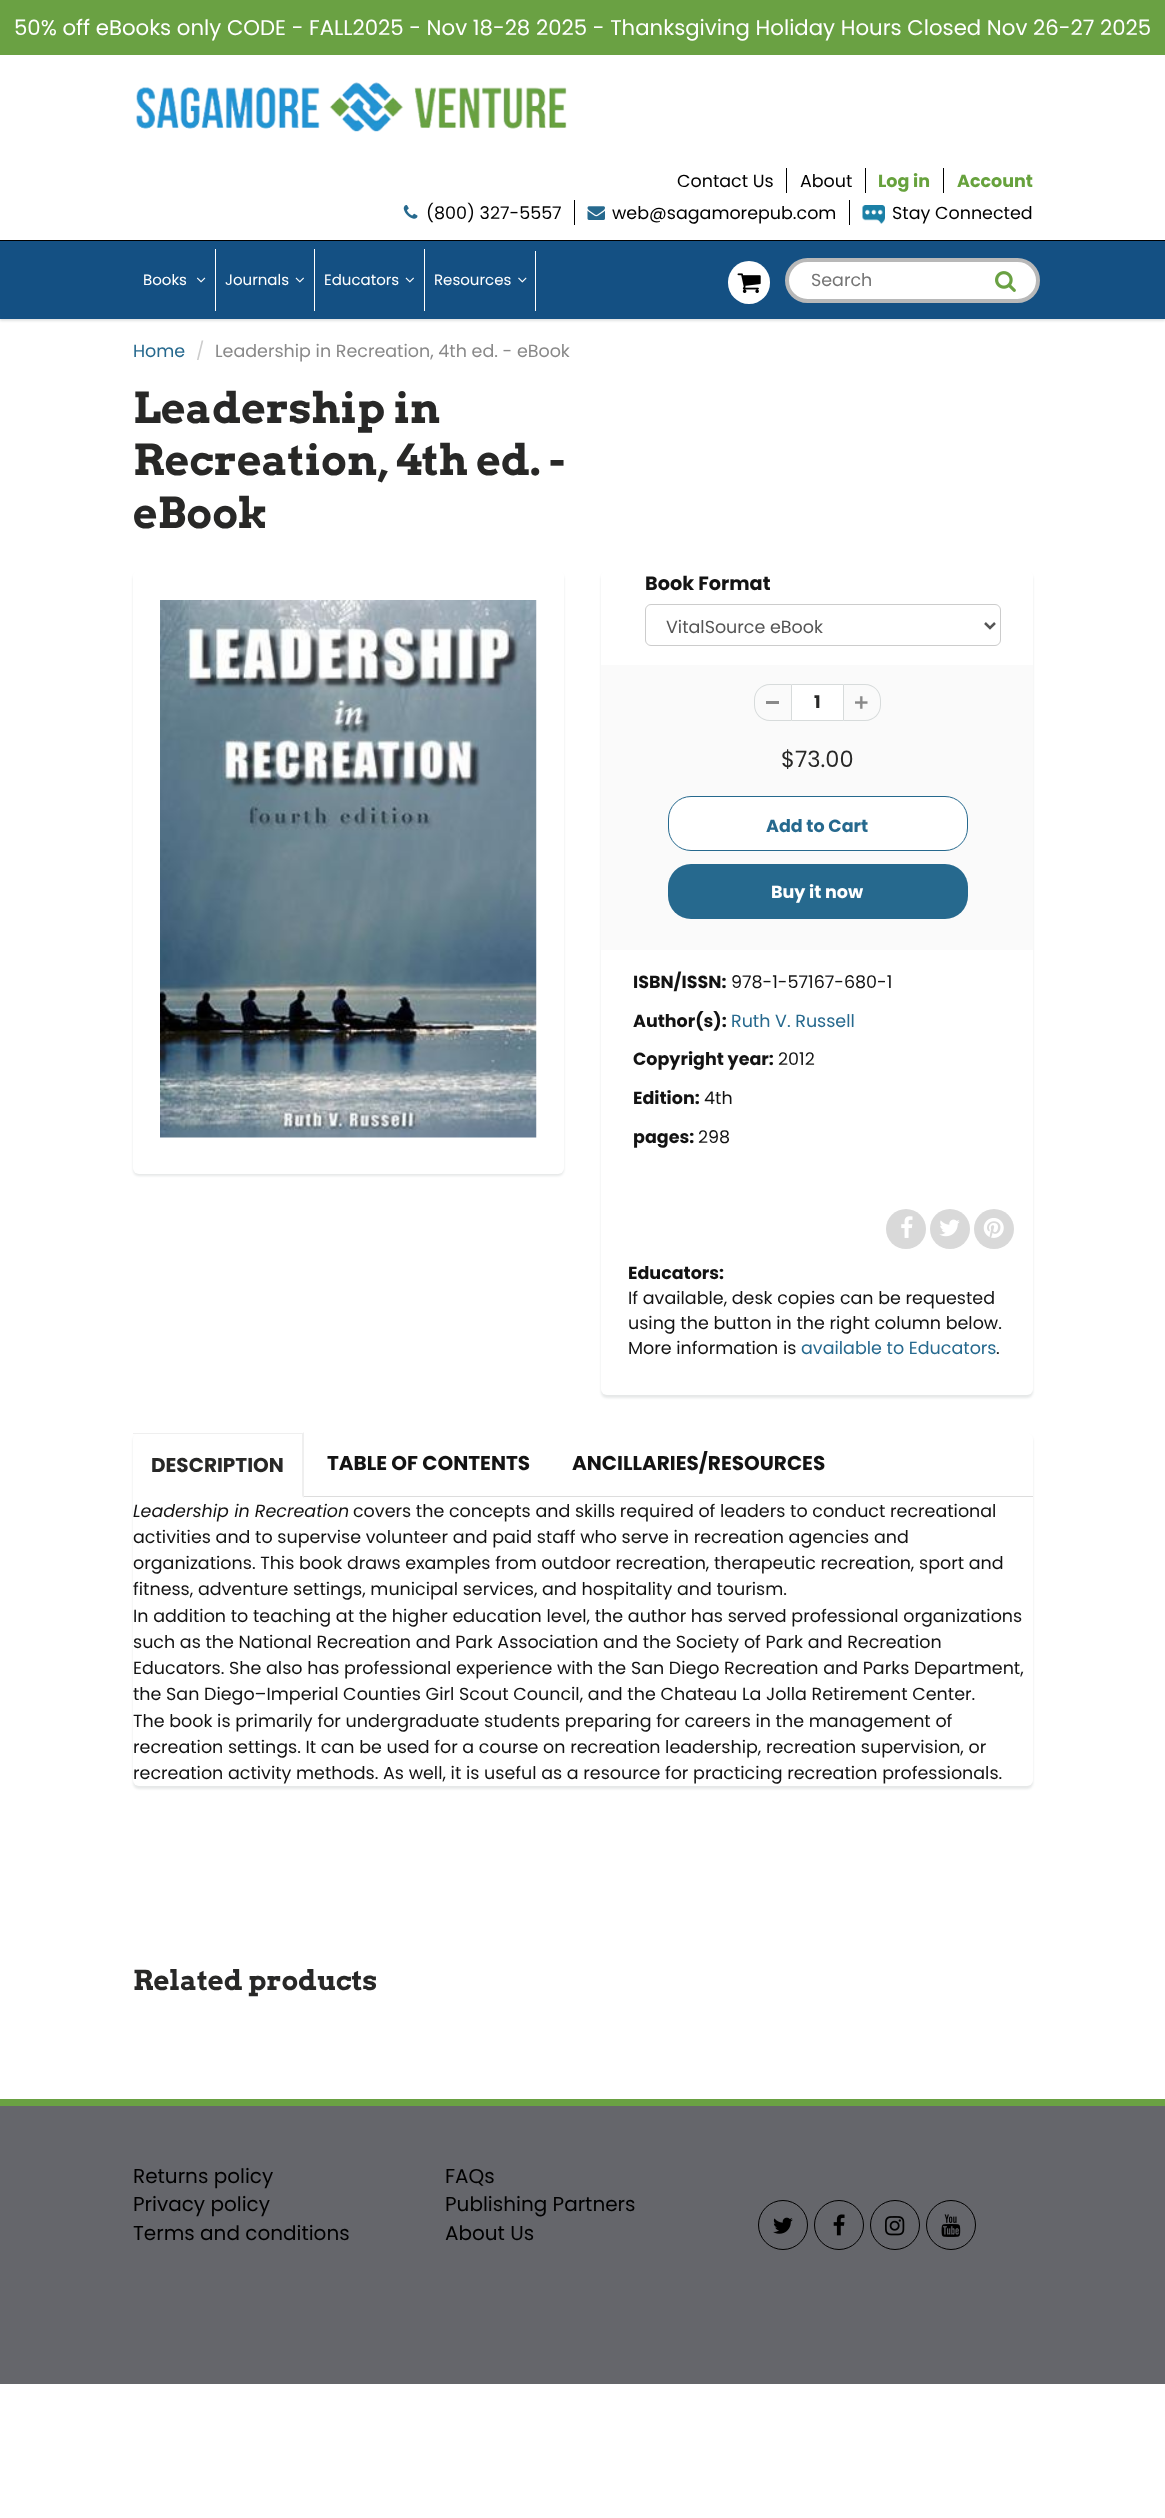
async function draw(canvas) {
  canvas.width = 1165
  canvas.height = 2518
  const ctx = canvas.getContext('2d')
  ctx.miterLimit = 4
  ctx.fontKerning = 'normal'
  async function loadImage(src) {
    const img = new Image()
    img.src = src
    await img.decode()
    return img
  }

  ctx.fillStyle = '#fff'
  ctx.fillRect(0, 0, 1165, 2518)
  ctx.fillStyle = '#6aa143'
  ctx.fillRect(0, 0, 1165, 55)
  ctx.font = '21.25px Poppins'
  ctx.fillStyle = '#fff'
  ctx.fillText('50% off eBooks only CODE - FALL2025 - Nov 18-28 2025 - Thanksgiving Holiday Hours Closed Nov 26-27 2025', 14, 35)
  ctx.drawImage(await loadImage('image0.png'), 136, 82, 431, 50)
  ctx.font = '17.5px Poppins'
  ctx.fillStyle = '#000'
  ctx.fillText('Contact Us', 677, 187)
  ctx.fillRect(786, 168, 1, 25)
  ctx.fillText('About', 800, 187)
  ctx.fillRect(865, 168, 1, 25)
  ctx.font = 'bold 17.5px Poppins'
  ctx.fillStyle = '#67a23d'
  ctx.fillText('Log in', 878, 187)
  ctx.fillStyle = '#000'
  ctx.fillRect(943, 168, 1, 25)
  ctx.fillStyle = '#67a23d'
  ctx.fillText('Account', 957, 187)
  ctx.drawImage(await loadImage('image1.png'), 403, 205, 15, 14)
  ctx.font = '17.5px Poppins'
  ctx.fillStyle = '#000'
  ctx.fillText('(800) 327-5557', 426, 219)
  ctx.fillRect(574, 200, 1, 25)
  ctx.drawImage(await loadImage('image2.png'), 587, 206, 18, 14)
  ctx.fillText('web@sagamorepub.com', 612, 219)
  ctx.fillRect(849, 200, 1, 25)
  ctx.drawImage(await loadImage('image3.png'), 862, 205, 23, 19)
  ctx.fillText('Stay Connected', 892, 219)
  ctx.fillStyle = '#0b191c1f'
  ctx.filter = 'blur(1px)'
  ctx.beginPath()
  ctx.rect(0, 243, 1165, 78)
  ctx.fill()
  ctx.filter = 'none'
  ctx.fillStyle = '#145083'
  ctx.fillRect(0, 241, 1165, 78)
  ctx.fillStyle = '#000'
  ctx.fillRect(0, 240, 1165, 1)
  ctx.fillStyle = '#fff'
  ctx.fillRect(215, 249, 1, 62)
  ctx.font = '15px Poppins'
  ctx.fillText('Books', 143, 285)
  ctx.drawImage(await loadImage('image4.png'), 196, 277, 10, 6)
  ctx.fillRect(314, 249, 1, 62)
  ctx.fillText('Journals', 225, 285)
  ctx.drawImage(await loadImage('image5.png'), 295, 277, 9, 6)
  ctx.fillRect(424, 249, 1, 62)
  ctx.fillText('Educators', 324, 285)
  ctx.drawImage(await loadImage('image5.png'), 405, 277, 9, 6)
  ctx.fillRect(535, 251, 1, 60)
  ctx.fillText('Resources', 434, 285)
  ctx.drawImage(await loadImage('image6.png'), 518, 277, 9, 6)
  ctx.beginPath()
  ctx.roundRect(728, 261, 42, 43, 21)
  ctx.fill()
  ctx.drawImage(await loadImage('image7.png'), 737, 273, 24, 20)
  ctx.beginPath()
  ctx.roundRect(787, 260, 251, 41, 20.5)
  ctx.fill()
  ctx.strokeStyle = '#b8b8b8'
  ctx.lineWidth = 4
  ctx.stroke()
  ctx.font = '17.5px Poppins'
  ctx.fillStyle = '#757575'
  ctx.fillText('Search', 811, 286)
  ctx.drawImage(await loadImage('image8.png'), 995, 271, 21, 21)
  ctx.fillStyle = '#26698e'
  ctx.fillText('Home', 133, 357)
  ctx.fillStyle = '#ccc'
  ctx.fillText('/', 196, 357)
  ctx.fillStyle = '#898989'
  ctx.fillText('Leadership in Recreation, 4th ed. - eBook', 215, 357)
  ctx.font = 'bold 42.5px Arvo'
  ctx.fillStyle = '#282827'
  ctx.fillText('Leadership in', 133, 423)
  ctx.fillText('Recreation, 4th ed. -', 133, 475)
  ctx.fillText('eBook', 133, 528)
  ctx.fillStyle = '#0b191c1a'
  ctx.filter = 'blur(1px)'
  ctx.beginPath()
  ctx.roundRect(133, 573, 431, 603, 6)
  ctx.fill()
  ctx.filter = 'none'
  ctx.fillStyle = '#fff'
  ctx.beginPath()
  ctx.roundRect(133, 570, 431, 604, 6)
  ctx.fill()
  ctx.drawImage(await loadImage('image9.png'), 160, 600, 377, 538)
  ctx.fillStyle = '#0b191c1a'
  ctx.filter = 'blur(1px)'
  ctx.beginPath()
  ctx.roundRect(601, 573, 432, 825, 6)
  ctx.fill()
  ctx.filter = 'none'
  ctx.fillStyle = '#fff'
  ctx.beginPath()
  ctx.roundRect(601, 570, 432, 825, 6)
  ctx.fill()
  ctx.font = 'bold 19.25px Poppins'
  ctx.fillStyle = '#131313'
  ctx.fillText('Book Format', 645, 590)
  ctx.beginPath()
  ctx.roundRect(645.5, 604.5, 355, 41, 5.5)
  ctx.strokeStyle = '#ccc'
  ctx.lineWidth = 1
  ctx.stroke()
  ctx.beginPath()
  ctx.moveTo(985, 623)
  ctx.lineTo(990, 628)
  ctx.lineTo(995, 623)
  ctx.strokeStyle = '#555'
  ctx.lineWidth = 2.5
  ctx.stroke()
  ctx.font = '17.5px Poppins'
  ctx.fillStyle = '#555'
  ctx.fillText('VitalSource eBook', 666, 633)
  ctx.fillStyle = '#fafafa'
  ctx.fillRect(601, 665, 432, 285)
  ctx.fillStyle = '#898989'
  ctx.fillRect(766, 701, 13, 3)
  ctx.fillStyle = '#d7dbdb'
  ctx.beginPath()
  ctx.moveTo(770, 684)
  ctx.lineTo(791, 684)
  ctx.lineTo(791, 721)
  ctx.lineTo(770, 721)
  ctx.bezierCurveTo(761, 721, 754, 714, 754, 705)
  ctx.lineTo(754, 700)
  ctx.bezierCurveTo(754, 691, 761, 684, 770, 684)
  ctx.closePath()
  ctx.moveTo(770, 685)
  ctx.lineTo(791, 685)
  ctx.lineTo(791, 720)
  ctx.lineTo(770, 720)
  ctx.bezierCurveTo(761.5, 720, 755, 713.5, 755, 705)
  ctx.lineTo(755, 700)
  ctx.bezierCurveTo(755, 691.5, 761.5, 685, 770, 685)
  ctx.closePath()
  ctx.fill('evenodd')
  ctx.fillStyle = '#fff'
  ctx.beginPath()
  ctx.rect(791.5, 684.5, 52, 36)
  ctx.fill()
  ctx.strokeStyle = '#d7dbdb'
  ctx.lineWidth = 1
  ctx.stroke()
  ctx.font = 'bold 17.5px Poppins'
  ctx.fillStyle = '#282827'
  ctx.fillText('1', 814, 708)
  ctx.drawImage(await loadImage('image10.png'), 855, 696, 13, 13)
  ctx.fillStyle = '#d7dbdb'
  ctx.beginPath()
  ctx.moveTo(844, 684)
  ctx.lineTo(865, 684)
  ctx.bezierCurveTo(874, 684, 881, 691, 881, 700)
  ctx.lineTo(881, 705)
  ctx.bezierCurveTo(881, 714, 874, 721, 865, 721)
  ctx.lineTo(844, 721)
  ctx.closePath()
  ctx.moveTo(844, 685)
  ctx.lineTo(865, 685)
  ctx.bezierCurveTo(873.5, 685, 880, 691.5, 880, 700)
  ctx.lineTo(880, 705)
  ctx.bezierCurveTo(880, 713.5, 873.5, 720, 865, 720)
  ctx.lineTo(844, 720)
  ctx.closePath()
  ctx.fill('evenodd')
  ctx.font = '22.5px Poppins'
  ctx.fillStyle = '#282827'
  ctx.fillText('$73.00', 781, 767)
  ctx.fillStyle = '#fff'
  ctx.beginPath()
  ctx.roundRect(668.5, 796.5, 299, 54, 22.5)
  ctx.fill()
  ctx.strokeStyle = '#26698e'
  ctx.stroke()
  ctx.font = 'bold 17.5px Poppins'
  ctx.fillStyle = '#26698e'
  ctx.fillText('Add to Cart', 766, 832)
  ctx.beginPath()
  ctx.roundRect(668, 864, 300, 55, 23)
  ctx.fill()
  ctx.fillStyle = '#fff'
  ctx.fillText('Buy it now', 771, 898)
  ctx.fillStyle = '#131313'
  ctx.fillText('ISBN/ISSN:', 633, 988)
  ctx.font = '17.5px Poppins'
  ctx.fillText('978-1-57167-680-1', 731, 988)
  ctx.font = 'bold 17.5px Poppins'
  ctx.fillText('Author(s):', 633, 1027)
  ctx.font = '17.5px Poppins'
  ctx.fillStyle = '#26698e'
  ctx.fillText('Ruth V. Russell', 731, 1027)
  ctx.font = 'bold 17.5px Poppins'
  ctx.fillStyle = '#131313'
  ctx.fillText('Copyright year:', 633, 1065)
  ctx.font = '17.5px Poppins'
  ctx.fillText('2012', 778, 1065)
  ctx.font = 'bold 17.5px Poppins'
  ctx.fillText('Edition:', 633, 1104)
  ctx.font = '17.5px Poppins'
  ctx.fillText('4th', 704, 1104)
  ctx.font = 'bold 17.5px Poppins'
  ctx.fillText('pages:', 633, 1143)
  ctx.font = '17.5px Poppins'
  ctx.fillText('298', 698, 1143)
  ctx.fillStyle = '#d9d9d9'
  ctx.beginPath()
  ctx.arc(906, 1229, 20, 0, 2 * Math.PI)
  ctx.fill()
  ctx.drawImage(await loadImage('image11.png'), 901, 1216, 12, 22)
  ctx.beginPath()
  ctx.arc(950, 1229, 20, 0, 2 * Math.PI)
  ctx.fill()
  ctx.drawImage(await loadImage('image12.png'), 939, 1219, 21, 18)
  ctx.beginPath()
  ctx.arc(994, 1229, 20, 0, 2 * Math.PI)
  ctx.fill()
  ctx.drawImage(await loadImage('image13.png'), 983, 1218, 21, 20)
  ctx.font = 'bold 17.5px Poppins'
  ctx.fillStyle = '#131313'
  ctx.fillText('Educators:', 628, 1279)
  ctx.font = '17.5px Poppins'
  ctx.fillText('If available, desk copies can be requested', 628, 1304)
  ctx.fillText('using the button in the right column below.', 628, 1329)
  ctx.fillText('More information is', 628, 1354)
  ctx.fillStyle = '#26698e'
  ctx.fillText('available to Educators', 801, 1354)
  ctx.fillStyle = '#131313'
  ctx.fillText('.', 996, 1354)
  ctx.fillStyle = '#0b191c1a'
  ctx.filter = 'blur(1px)'
  ctx.beginPath()
  ctx.roundRect(133, 1435, 900, 354, 6)
  ctx.fill()
  ctx.filter = 'none'
  ctx.fillStyle = '#fff'
  ctx.beginPath()
  ctx.roundRect(133, 1433, 900, 353, 6)
  ctx.fill()
  ctx.fillStyle = '#ddd'
  ctx.fillRect(304, 1496, 729, 1)
  ctx.fillStyle = '#efefef'
  ctx.fillRect(133, 1433, 171, 1)
  ctx.beginPath()
  ctx.moveTo(304, 1432)
  ctx.lineTo(304, 1498)
  ctx.lineTo(302, 1496)
  ctx.lineTo(302, 1434)
  ctx.closePath()
  ctx.fill()
  ctx.font = 'bold 20px Poppins'
  ctx.fillStyle = '#282827'
  ctx.fillText('DESCRIPTION', 151, 1472)
  ctx.fillStyle = '#131313'
  ctx.fillText('TABLE OF CONTENTS', 327, 1470)
  ctx.fillText('ANCILLARIES/RESOURCES', 572, 1470)
  ctx.font = 'italic 17.5px Poppins'
  ctx.fillText('Leadership in Recreation', 133, 1517)
  ctx.font = '17.5px Poppins'
  ctx.fillText('covers the concepts and skills required of leaders to conduct recreational', 353, 1517)
  ctx.fillText('activities and to supervise volunteer and paid staff who serve in recreation agencies and', 133, 1543)
  ctx.fillText('organizations. This book draws examples from outdoor recreation, therapeutic recreation, sport and', 133, 1569)
  ctx.fillText('fitness, adventure settings, municipal services, and hospitality and tourism.', 133, 1595)
  ctx.fillText('In addition to teaching at the higher education level, the author has served professional organizations', 133, 1622)
  ctx.fillText('such as the National Recreation and Park Association and the Society of Park and Recreation', 133, 1648)
  ctx.fillText('Educators. She also has professional experience with the San Diego Recreation and Parks Department,', 133, 1674)
  ctx.fillText('the San Diego–Imperial Counties Girl Scout Council, and the Chateau La Jolla Retirement Center.', 133, 1700)
  ctx.fillText('The book is primarily for undergraduate students preparing for careers in the management of', 133, 1727)
  ctx.fillText('recreation settings. It can be used for a course on recreation leadership, recreation supervision, or', 133, 1753)
  ctx.fillText('recreation activity methods. As well, it is useful as a resource for practicing recreation professionals.', 133, 1779)
  ctx.font = 'bold 27.5px Arvo'
  ctx.fillStyle = '#282827'
  ctx.fillText('Related products', 133, 1990)
  ctx.fillStyle = '#65666b'
  ctx.fillRect(0, 2106, 1165, 278)
  ctx.fillStyle = '#6aa143'
  ctx.fillRect(0, 2099, 1165, 7)
  ctx.font = '20px Poppins'
  ctx.fillStyle = '#000'
  ctx.fillText('Returns policy', 133, 2183)
  ctx.fillText('Privacy policy', 133, 2211)
  ctx.fillText('Terms and conditions', 133, 2240)
  ctx.fillText('FAQs', 445, 2183)
  ctx.fillText('Publishing Partners', 445, 2211)
  ctx.fillText('About Us', 445, 2240)
  ctx.beginPath()
  ctx.arc(783, 2225, 24.5, 0, 2 * Math.PI)
  ctx.strokeStyle = '#000'
  ctx.stroke()
  ctx.drawImage(await loadImage('image14.png'), 773, 2217, 20, 17)
  ctx.beginPath()
  ctx.arc(839, 2225, 24.5, 0, 2 * Math.PI)
  ctx.stroke()
  ctx.drawImage(await loadImage('image15.png'), 833, 2214, 12, 22)
  ctx.beginPath()
  ctx.arc(895, 2225, 24.5, 0, 2 * Math.PI)
  ctx.stroke()
  ctx.drawImage(await loadImage('image16.png'), 885, 2216, 20, 20)
  ctx.beginPath()
  ctx.arc(951, 2225, 24.5, 0, 2 * Math.PI)
  ctx.stroke()
  ctx.drawImage(await loadImage('image17.png'), 941, 2214, 20, 23)
}

draw(document.querySelector('canvas'))
